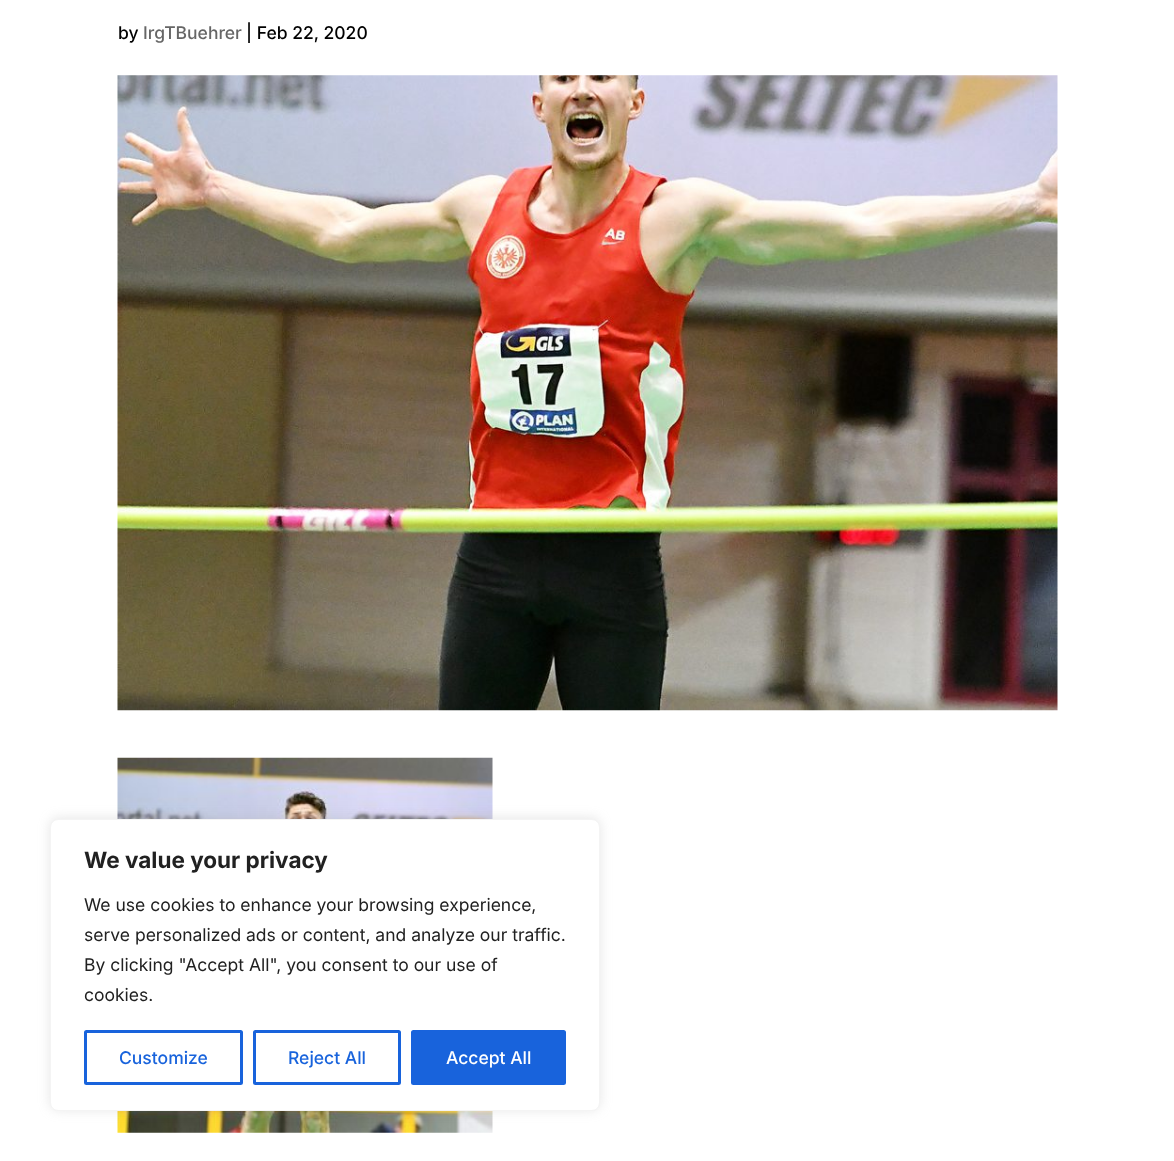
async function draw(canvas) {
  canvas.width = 1174
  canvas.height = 1161
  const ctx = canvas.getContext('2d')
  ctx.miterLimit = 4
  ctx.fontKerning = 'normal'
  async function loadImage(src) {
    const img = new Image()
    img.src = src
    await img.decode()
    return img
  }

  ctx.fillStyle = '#fff'
  ctx.fillRect(0, 0, 1174, 1161)
  ctx.font = '500 17.5px Inter'
  ctx.fillStyle = '#000'
  ctx.fillText('by', 118, 39)
  ctx.fillStyle = '#666'
  ctx.fillText('IrgTBuehrer', 143, 39)
  ctx.fillStyle = '#000'
  ctx.fillText('| Feb 22, 2020', 246, 39)
  ctx.drawImage(await loadImage('image0.png'), 117, 75, 941, 636)
  ctx.drawImage(await loadImage('image1.png'), 117, 757, 376, 376)
  ctx.fillStyle = '#acabab4d'
  ctx.filter = 'blur(6px)'
  ctx.beginPath()
  ctx.roundRect(50, 818, 550, 292, 8)
  ctx.fill()
  ctx.filter = 'none'
  ctx.fillStyle = '#fff'
  ctx.beginPath()
  ctx.roundRect(50.5, 819.5, 549, 291, 7.5)
  ctx.fill()
  ctx.strokeStyle = '#f4f4f4'
  ctx.stroke()
  ctx.font = 'bold 22.5px Inter'
  ctx.fillStyle = '#212121'
  ctx.fillText('We value your privacy', 84, 868)
  ctx.font = '17.5px Inter'
  ctx.fillText('We use cookies to enhance your browsing experience,', 84, 911)
  ctx.fillText('serve personalized ads or content, and analyze our traffic.', 84, 941)
  ctx.fillText('By clicking "Accept All", you consent to our use of', 84, 971)
  ctx.fillText('cookies.', 84, 1001)
  ctx.beginPath()
  ctx.roundRect(85.5, 1031.5, 156, 52, 1)
  ctx.strokeStyle = '#1863dc'
  ctx.lineWidth = 3
  ctx.stroke()
  ctx.font = '500 17.5px Inter'
  ctx.fillStyle = '#1863dc'
  ctx.fillText('Customize', 119, 1064)
  ctx.beginPath()
  ctx.roundRect(254.5, 1031.5, 145, 52, 1)
  ctx.stroke()
  ctx.fillText('Reject All', 288, 1064)
  ctx.beginPath()
  ctx.roundRect(412.5, 1031.5, 152, 52, 1)
  ctx.fill()
  ctx.stroke()
  ctx.fillStyle = '#fff'
  ctx.fillText('Accept All', 446, 1064)
}

draw(document.querySelector('canvas'))
